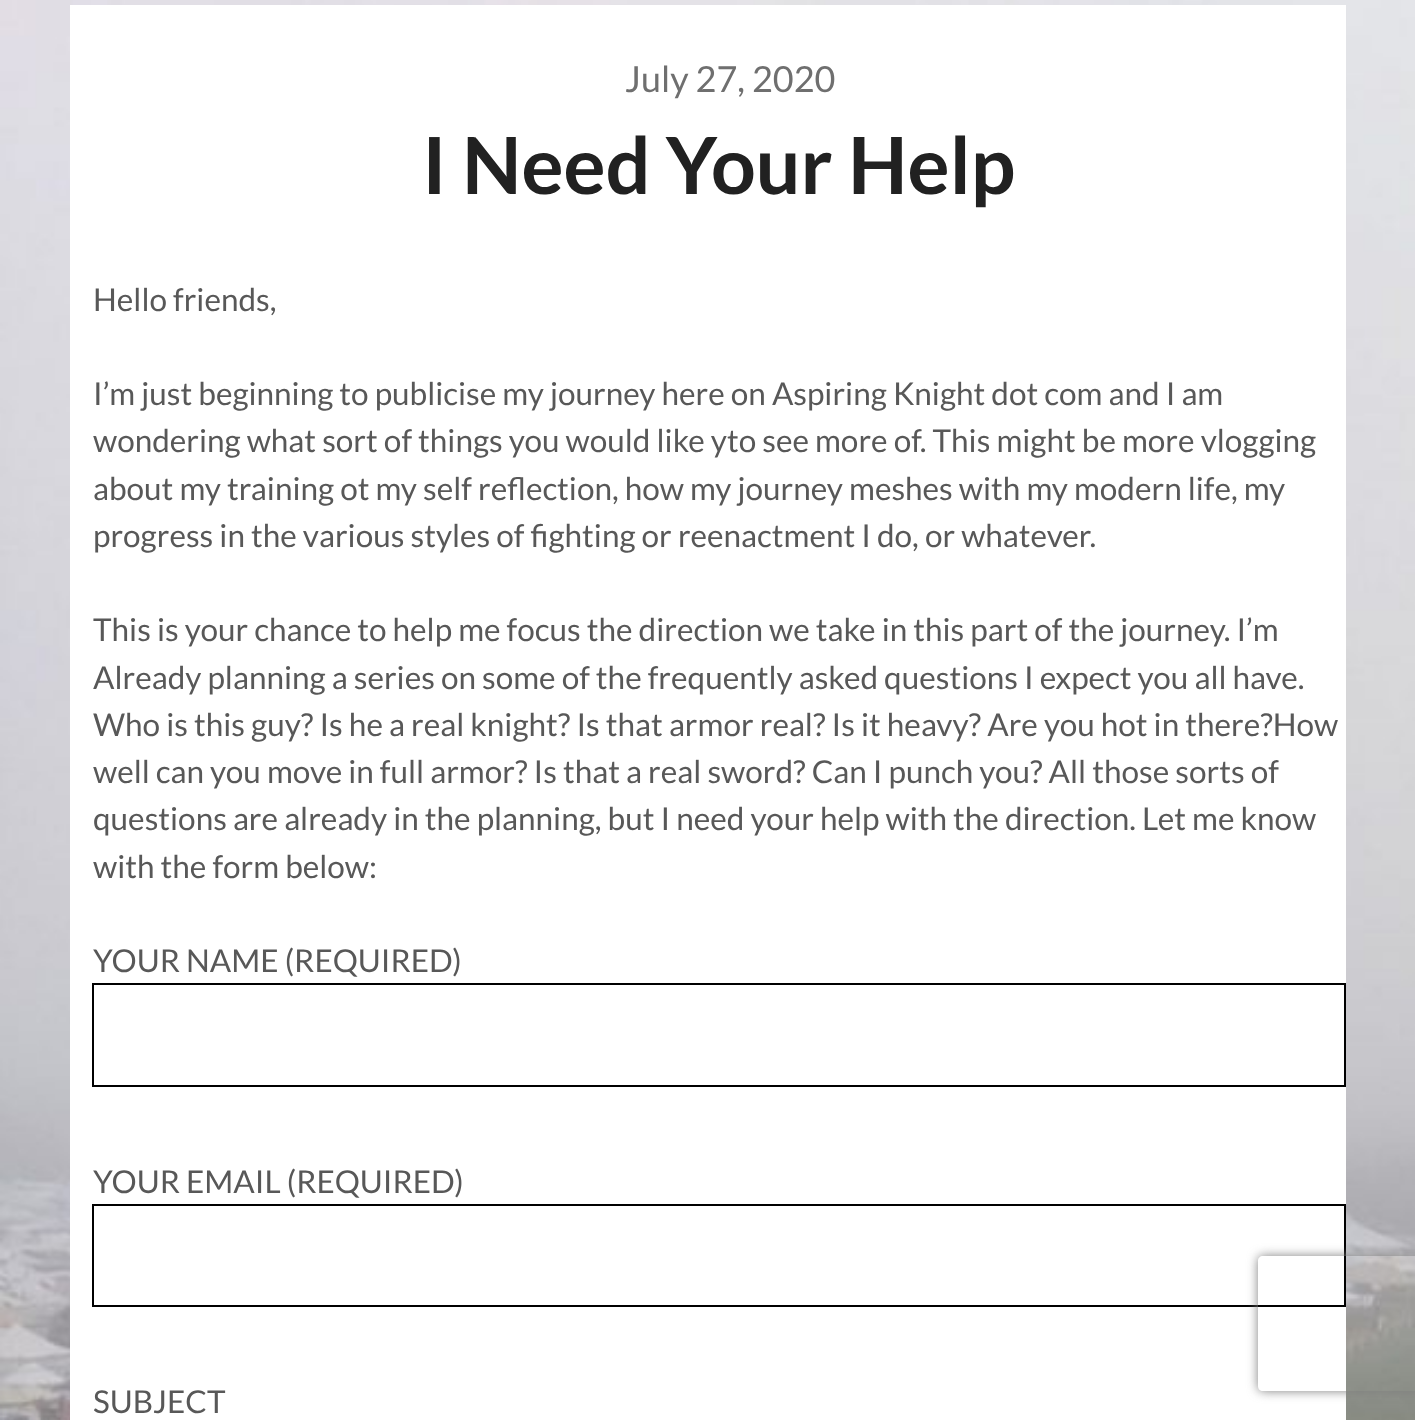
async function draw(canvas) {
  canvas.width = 1415
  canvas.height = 1420
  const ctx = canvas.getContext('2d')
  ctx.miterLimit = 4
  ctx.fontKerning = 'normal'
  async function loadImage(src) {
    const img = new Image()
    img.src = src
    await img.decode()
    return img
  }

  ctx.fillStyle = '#fff'
  ctx.fillRect(0, 0, 1415, 1420)
  ctx.drawImage(await loadImage('image0.png'), 0, 0, 1415, 1420)
  ctx.fillRect(70, 5, 1276, 1415)
  ctx.font = '36px Lato'
  ctx.fillStyle = '#6f6f6f'
  ctx.fillText('July 27, 2020', 625, 92)
  ctx.font = 'bold 78.75px Lato'
  ctx.fillStyle = '#212121'
  ctx.fillText('I Need Your Help', 422, 194)
  ctx.font = '31.5px Lato'
  ctx.fillStyle = '#585858'
  ctx.fillText('Hello friends,', 93, 311)
  ctx.fillText('I’m just beginning to publicise my journey here on Aspiring Knight dot com and I am', 93, 405)
  ctx.fillText('wondering what sort of things you would like yto see more of. This might be more vlogging', 93, 452)
  ctx.fillText('about my training ot my self reflection, how my journey meshes with my modern life, my', 93, 500)
  ctx.fillText('progress in the various styles of fighting or reenactment I do, or whatever.', 93, 547)
  ctx.fillText('This is your chance to help me focus the direction we take in this part of the journey. I’m', 93, 641)
  ctx.fillText('Already planning a series on some of the frequently asked questions I expect you all have.', 93, 689)
  ctx.fillText('Who is this guy? Is he a real knight? Is that armor real? Is it heavy? Are you hot in there?How', 93, 736)
  ctx.fillText('well can you move in full armor? Is that a real sword? Can I punch you? All those sorts of', 93, 783)
  ctx.fillText('questions are already in the planning, but I need your help with the direction. Let me know', 93, 830)
  ctx.fillText('with the form below:', 93, 878)
  ctx.fillText('YOUR NAME (REQUIRED)', 93, 972)
  ctx.strokeStyle = '#000'
  ctx.lineWidth = 2
  ctx.strokeRect(93, 984, 1252, 102)
  ctx.fillText('YOUR EMAIL (REQUIRED)', 93, 1193)
  ctx.strokeRect(93, 1205, 1252, 101)
  ctx.fillText('SUBJECT', 93, 1413)
  ctx.save()
  ctx.beginPath()
  ctx.moveTo(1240, 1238)
  ctx.lineTo(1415, 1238)
  ctx.lineTo(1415, 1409)
  ctx.lineTo(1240, 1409)
  ctx.closePath()
  ctx.moveTo(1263, 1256)
  ctx.lineTo(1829, 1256)
  ctx.bezierCurveTo(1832, 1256, 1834, 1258, 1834, 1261)
  ctx.lineTo(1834, 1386)
  ctx.bezierCurveTo(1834, 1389, 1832, 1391, 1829, 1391)
  ctx.lineTo(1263, 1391)
  ctx.bezierCurveTo(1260, 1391, 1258, 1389, 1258, 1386)
  ctx.lineTo(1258, 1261)
  ctx.bezierCurveTo(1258, 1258, 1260, 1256, 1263, 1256)
  ctx.closePath()
  ctx.clip('evenodd')
  ctx.fillStyle = '#808080'
  ctx.filter = 'blur(5.5px)'
  ctx.beginPath()
  ctx.roundRect(1258, 1256, 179, 135, 5)
  ctx.fill()
  ctx.filter = 'none'
  ctx.restore()
}

draw(document.querySelector('canvas'))
